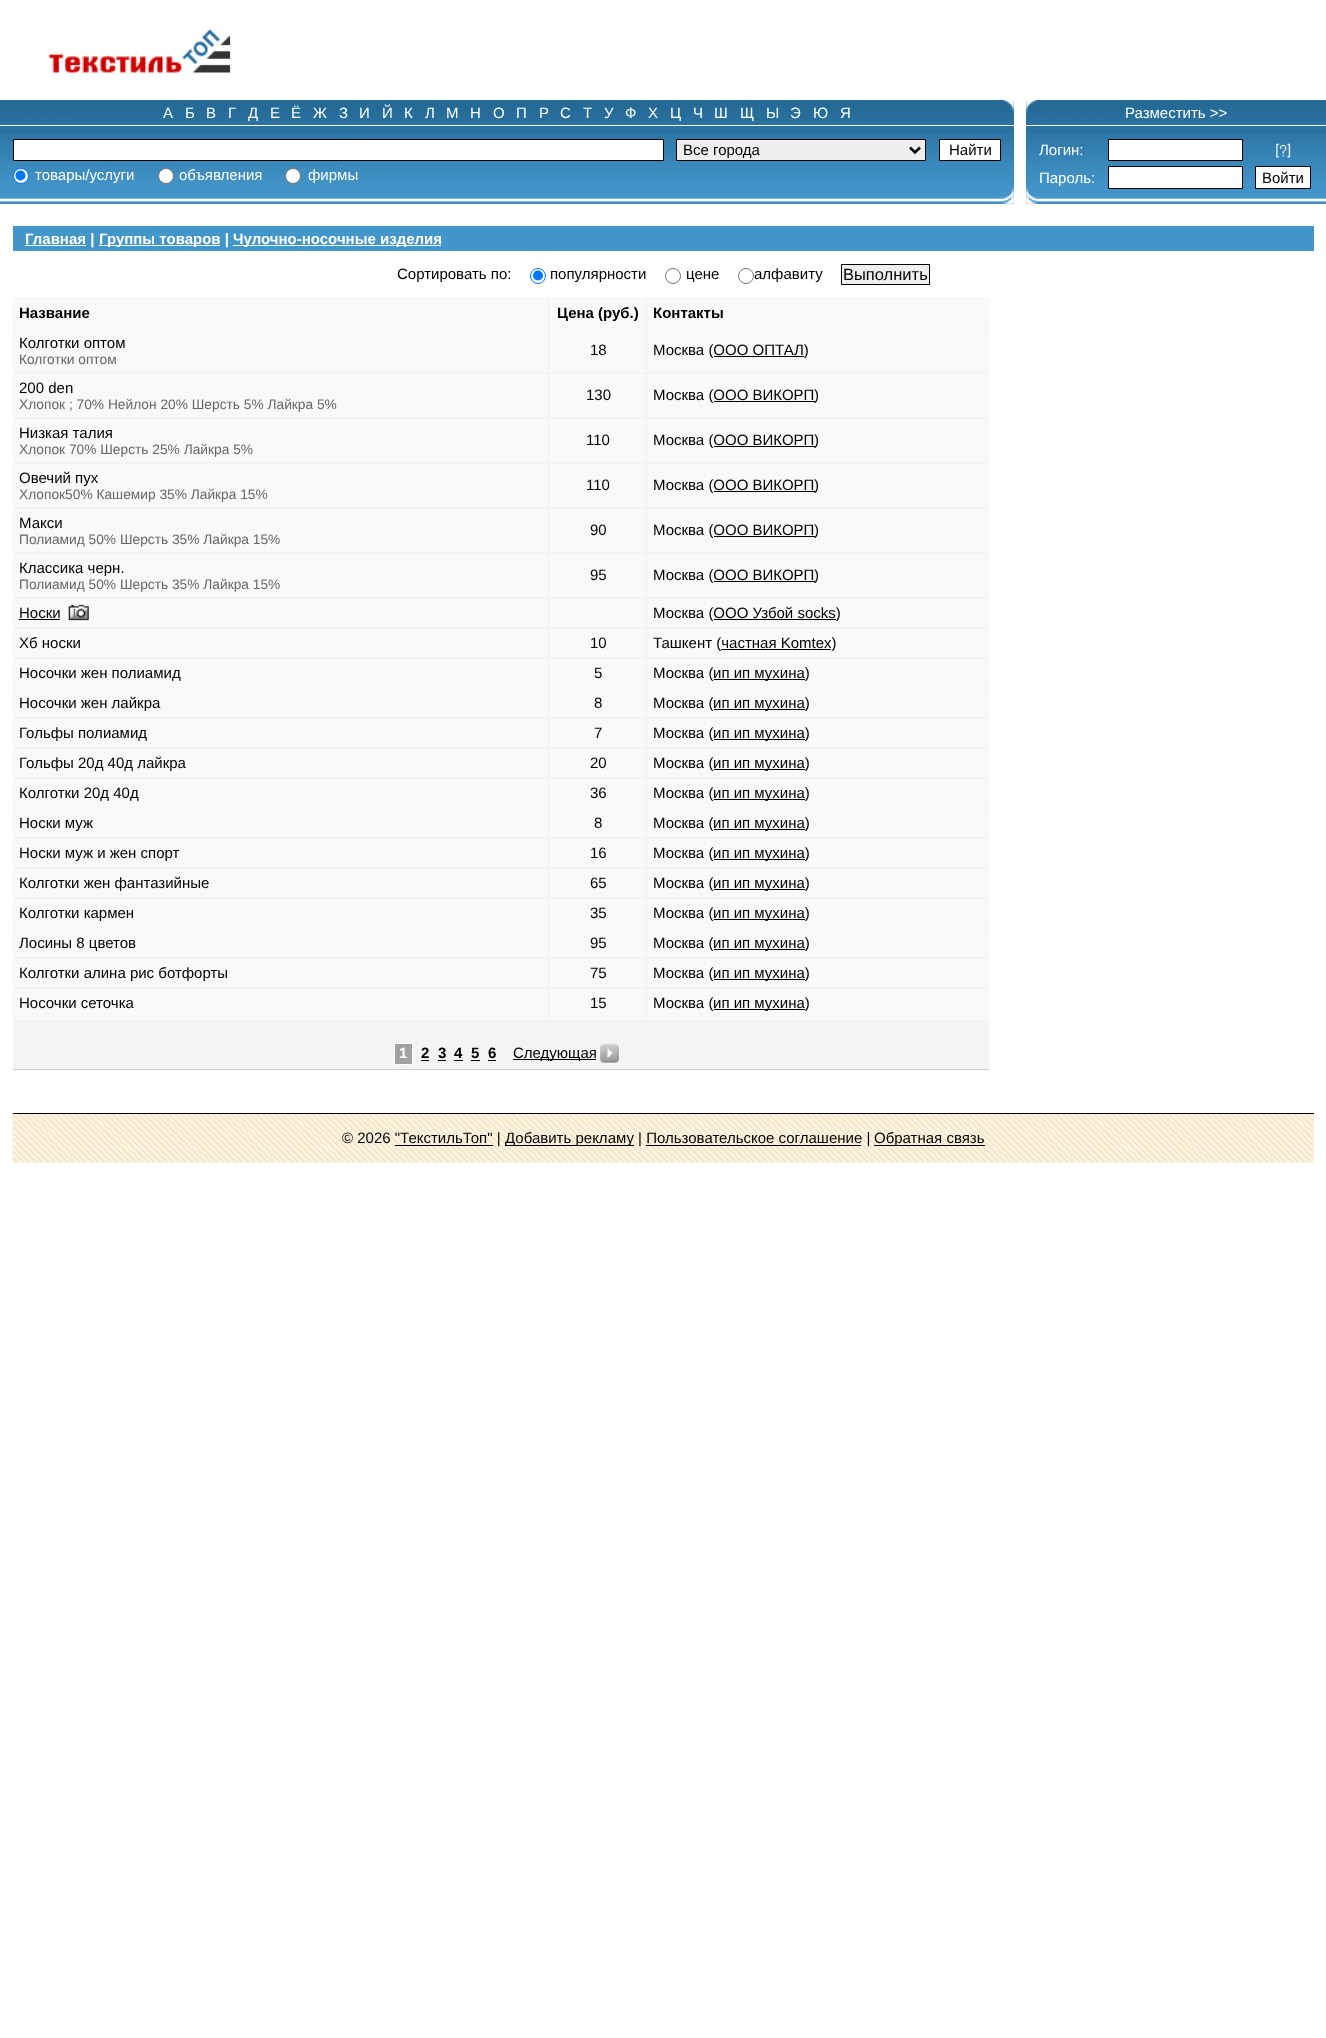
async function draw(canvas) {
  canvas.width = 1326
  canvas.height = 2038
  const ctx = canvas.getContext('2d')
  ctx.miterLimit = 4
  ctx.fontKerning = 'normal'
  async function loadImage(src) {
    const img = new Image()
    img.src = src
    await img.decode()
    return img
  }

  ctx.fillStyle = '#fff'
  ctx.fillRect(0, 0, 1326, 2038)
  ctx.drawImage(await loadImage('image0.png'), 48, 28, 183, 46)
  ctx.fillStyle = '#2a72a2'
  ctx.fillRect(0, 100, 1014, 25)
  ctx.drawImage(await loadImage('image1.png'), 0, 100, 1014, 22)
  ctx.drawImage(await loadImage('image2.png'), 1002, 100, 12, 12)
  ctx.font = '15px Liberation Sans'
  ctx.fillStyle = '#fff'
  ctx.fillText('А', 163, 118)
  ctx.fillText('Б', 185, 118)
  ctx.fillText('В', 206, 118)
  ctx.fillText('Г', 228, 118)
  ctx.fillText('Д', 248, 118)
  ctx.fillText('Е', 270, 118)
  ctx.fillText('Ё', 291, 118)
  ctx.fillText('Ж', 313, 118)
  ctx.fillText('З', 339, 118)
  ctx.fillText('И', 359, 118)
  ctx.fillText('Й', 382, 118)
  ctx.fillText('К', 404, 118)
  ctx.fillText('Л', 425, 118)
  ctx.fillText('М', 446, 118)
  ctx.fillText('Н', 470, 118)
  ctx.fillText('О', 493, 118)
  ctx.fillText('П', 516, 118)
  ctx.fillText('Р', 539, 118)
  ctx.fillText('С', 560, 118)
  ctx.fillText('Т', 583, 118)
  ctx.fillText('У', 604, 118)
  ctx.fillText('Ф', 625, 118)
  ctx.fillText('Х', 648, 118)
  ctx.fillText('Ц', 670, 118)
  ctx.fillText('Ч', 693, 118)
  ctx.fillText('Ш', 714, 118)
  ctx.fillText('Щ', 740, 118)
  ctx.fillText('Ы', 766, 118)
  ctx.fillText('Э', 790, 118)
  ctx.fillText('Ю', 813, 118)
  ctx.fillText('Я', 840, 118)
  ctx.fillStyle = '#2a72a2'
  ctx.fillRect(0, 126, 1014, 78)
  ctx.drawImage(await loadImage('image3.png'), 0, 134, 1014, 70)
  ctx.drawImage(await loadImage('image4.png'), 1001, 159, 13, 45)
  ctx.fillStyle = '#fff'
  ctx.beginPath()
  ctx.rect(13.5, 139.5, 650, 21)
  ctx.fill()
  ctx.strokeStyle = '#000'
  ctx.stroke()
  ctx.fillStyle = '#efefef'
  ctx.beginPath()
  ctx.rect(676.5, 139.5, 249, 21)
  ctx.fill()
  ctx.stroke()
  ctx.beginPath()
  ctx.moveTo(910, 147.5)
  ctx.lineTo(915, 152.5)
  ctx.lineTo(920, 147.5)
  ctx.lineWidth = 2.5
  ctx.stroke()
  ctx.fillStyle = '#000'
  ctx.fillText('Все города', 683, 155)
  ctx.fillStyle = '#fff'
  ctx.beginPath()
  ctx.rect(939.5, 139.5, 61, 21)
  ctx.fill()
  ctx.lineWidth = 1
  ctx.stroke()
  ctx.fillStyle = '#000'
  ctx.fillText('Найти', 949, 155)
  ctx.fillStyle = '#fff'
  ctx.beginPath()
  ctx.arc(21, 176, 7.5, 0, 2 * Math.PI)
  ctx.fill()
  ctx.strokeStyle = '#0075ff'
  ctx.stroke()
  ctx.fillStyle = '#0075ff'
  ctx.beginPath()
  ctx.arc(20.5, 175.5, 5, 0, 2 * Math.PI)
  ctx.fill()
  ctx.fillStyle = '#fff'
  ctx.fillText('товары/услуги', 35, 180)
  ctx.beginPath()
  ctx.arc(166, 176, 7.5, 0, 2 * Math.PI)
  ctx.fill()
  ctx.strokeStyle = '#767676'
  ctx.stroke()
  ctx.fillText('объявления', 179, 180)
  ctx.beginPath()
  ctx.arc(293, 176, 7.5, 0, 2 * Math.PI)
  ctx.fill()
  ctx.stroke()
  ctx.fillText('фирмы', 308, 180)
  ctx.fillStyle = '#2a72a2'
  ctx.fillRect(1026, 100, 300, 25)
  ctx.drawImage(await loadImage('image5.png'), 1026, 100, 300, 22)
  ctx.drawImage(await loadImage('image6.png'), 1026, 100, 12, 24)
  ctx.fillStyle = '#fff'
  ctx.fillText('Разместить >>', 1125, 118)
  ctx.fillStyle = '#2a72a2'
  ctx.fillRect(1026, 126, 300, 78)
  ctx.drawImage(await loadImage('image7.png'), 1026, 134, 300, 70)
  ctx.drawImage(await loadImage('image8.png'), 1026, 159, 13, 45)
  ctx.fillStyle = '#fff'
  ctx.fillText('Логин:', 1039, 155)
  ctx.beginPath()
  ctx.rect(1108.5, 139.5, 134, 21)
  ctx.fill()
  ctx.strokeStyle = '#000'
  ctx.stroke()
  ctx.drawImage(await loadImage('image9.png'), 1276, 143, 15, 15)
  ctx.fillText('Пароль:', 1039, 183)
  ctx.beginPath()
  ctx.rect(1108.5, 166.5, 134, 22)
  ctx.fill()
  ctx.stroke()
  ctx.beginPath()
  ctx.rect(1255.5, 166.5, 55, 22)
  ctx.fill()
  ctx.stroke()
  ctx.fillStyle = '#000'
  ctx.fillText('Войти', 1262, 183)
  ctx.fillStyle = '#4396ca'
  ctx.fillRect(13, 226, 1301, 25)
  ctx.fillStyle = '#fff'
  ctx.fillRect(25, 245, 61, 1)
  ctx.font = 'bold 15px Liberation Sans'
  ctx.fillText('Главная |', 25, 244)
  ctx.fillRect(99, 245, 121, 1)
  ctx.fillText('Группы товаров |', 99, 244)
  ctx.fillRect(233, 245, 208, 1)
  ctx.fillText('Чулочно-носочные изделия', 233, 244)
  ctx.font = '15px Liberation Sans'
  ctx.fillStyle = '#000'
  ctx.fillText('Сортировать по:', 397, 279)
  ctx.beginPath()
  ctx.arc(538, 276, 7.5, 0, 2 * Math.PI)
  ctx.strokeStyle = '#0075ff'
  ctx.stroke()
  ctx.fillStyle = '#0075ff'
  ctx.beginPath()
  ctx.arc(538, 275.5, 5, 0, 2 * Math.PI)
  ctx.fill()
  ctx.fillStyle = '#000'
  ctx.fillText('популярности', 550, 279)
  ctx.beginPath()
  ctx.arc(673, 276, 7.5, 0, 2 * Math.PI)
  ctx.strokeStyle = '#767676'
  ctx.stroke()
  ctx.fillText('цене', 686, 279)
  ctx.beginPath()
  ctx.arc(746, 276, 7.5, 0, 2 * Math.PI)
  ctx.stroke()
  ctx.fillText('алфавиту', 754, 279)
  ctx.fillStyle = '#efefef'
  ctx.beginPath()
  ctx.rect(841.5, 264.5, 88, 20)
  ctx.fill()
  ctx.strokeStyle = '#000'
  ctx.stroke()
  ctx.font = '16.5px Liberation Sans'
  ctx.fillStyle = '#000'
  ctx.fillText('Выполнить', 843, 280)
  ctx.fillStyle = '#f9f9f9'
  ctx.fillRect(14, 299, 974, 718)
  ctx.strokeStyle = '#f4f4f4'
  ctx.strokeRect(13.5, 298.5, 535, 29)
  ctx.font = 'bold 15px Liberation Sans'
  ctx.fillStyle = '#000'
  ctx.fillText('Название', 19, 318)
  ctx.strokeRect(549.5, 298.5, 96, 29)
  ctx.fillText('Цена (руб.)', 557, 318)
  ctx.strokeRect(646.5, 298.5, 342, 29)
  ctx.fillText('Контакты', 653, 318)
  ctx.strokeRect(13.5, 328.5, 535, 44)
  ctx.font = '15px Liberation Sans'
  ctx.fillText('Колготки оптом', 19, 348)
  ctx.font = '13.75px Liberation Sans'
  ctx.fillStyle = '#666'
  ctx.fillText('Колготки оптом', 19, 364)
  ctx.strokeRect(549.5, 328.5, 96, 44)
  ctx.font = '15px Liberation Sans'
  ctx.fillStyle = '#000'
  ctx.fillText('18', 590, 355)
  ctx.strokeRect(646.5, 328.5, 342, 44)
  ctx.fillText('Москва (ООО ОПТАЛ)', 653, 355)
  ctx.fillRect(714, 356, 90, 1)
  ctx.strokeRect(13.5, 373.5, 535, 44)
  ctx.fillText('200 den', 19, 393)
  ctx.font = '13.75px Liberation Sans'
  ctx.fillStyle = '#666'
  ctx.fillText('Хлопок ; 70% Нейлон 20% Шерсть 5% Лайкра 5%', 19, 409)
  ctx.strokeRect(549.5, 373.5, 96, 44)
  ctx.font = '15px Liberation Sans'
  ctx.fillStyle = '#000'
  ctx.fillText('130', 586, 400)
  ctx.strokeRect(646.5, 373.5, 342, 44)
  ctx.fillText('Москва (ООО ВИКОРП', 653, 400)
  ctx.fillRect(714, 401, 101, 1)
  ctx.fillText(')', 814, 400)
  ctx.strokeRect(13.5, 418.5, 535, 44)
  ctx.fillText('Низкая талия', 19, 438)
  ctx.font = '13.75px Liberation Sans'
  ctx.fillStyle = '#666'
  ctx.fillText('Хлопок 70% Шерсть 25% Лайкра 5%', 19, 454)
  ctx.strokeRect(549.5, 418.5, 96, 44)
  ctx.font = '15px Liberation Sans'
  ctx.fillStyle = '#000'
  ctx.fillText('110', 586, 445)
  ctx.strokeRect(646.5, 418.5, 342, 44)
  ctx.fillText('Москва (ООО ВИКОРП', 653, 445)
  ctx.fillRect(714, 446, 101, 1)
  ctx.fillText(')', 814, 445)
  ctx.strokeRect(13.5, 463.5, 535, 44)
  ctx.fillText('Овечий пух', 19, 483)
  ctx.font = '13.75px Liberation Sans'
  ctx.fillStyle = '#666'
  ctx.fillText('Хлопок50% Кашемир 35% Лайкра 15%', 19, 499)
  ctx.strokeRect(549.5, 463.5, 96, 44)
  ctx.font = '15px Liberation Sans'
  ctx.fillStyle = '#000'
  ctx.fillText('110', 586, 490)
  ctx.strokeRect(646.5, 463.5, 342, 44)
  ctx.fillText('Москва (ООО ВИКОРП', 653, 490)
  ctx.fillRect(714, 491, 101, 1)
  ctx.fillText(')', 814, 490)
  ctx.strokeRect(13.5, 508.5, 535, 44)
  ctx.fillText('Макси', 19, 528)
  ctx.font = '13.75px Liberation Sans'
  ctx.fillStyle = '#666'
  ctx.fillText('Полиамид 50% Шерсть 35% Лайкра 15%', 19, 544)
  ctx.strokeRect(549.5, 508.5, 96, 44)
  ctx.font = '15px Liberation Sans'
  ctx.fillStyle = '#000'
  ctx.fillText('90', 590, 535)
  ctx.strokeRect(646.5, 508.5, 342, 44)
  ctx.fillText('Москва (ООО ВИКОРП', 653, 535)
  ctx.fillRect(714, 536, 101, 1)
  ctx.fillText(')', 814, 535)
  ctx.strokeRect(13.5, 553.5, 535, 44)
  ctx.fillText('Классика черн.', 19, 573)
  ctx.font = '13.75px Liberation Sans'
  ctx.fillStyle = '#666'
  ctx.fillText('Полиамид 50% Шерсть 35% Лайкра 15%', 19, 589)
  ctx.strokeRect(549.5, 553.5, 96, 44)
  ctx.font = '15px Liberation Sans'
  ctx.fillStyle = '#000'
  ctx.fillText('95', 590, 580)
  ctx.strokeRect(646.5, 553.5, 342, 44)
  ctx.fillText('Москва (ООО ВИКОРП', 653, 580)
  ctx.fillRect(714, 581, 101, 1)
  ctx.fillText(')', 814, 580)
  ctx.strokeRect(13.5, 598.5, 535, 29)
  ctx.fillText('Носки', 19, 618)
  ctx.fillRect(19, 619, 41, 1)
  ctx.drawImage(await loadImage('image10.png'), 68, 604, 22, 17)
  ctx.strokeRect(549.5, 598.5, 96, 29)
  ctx.strokeRect(646.5, 598.5, 342, 29)
  ctx.fillText('Москва (ООО Узбой socks)', 653, 618)
  ctx.fillRect(714, 619, 122, 1)
  ctx.strokeRect(13.5, 628.5, 535, 29)
  ctx.fillText('Хб носки', 19, 648)
  ctx.strokeRect(549.5, 628.5, 96, 29)
  ctx.fillText('10', 590, 648)
  ctx.strokeRect(646.5, 628.5, 342, 29)
  ctx.fillText('Ташкент (частная Komtex)', 653, 648)
  ctx.fillRect(721, 649, 110, 1)
  ctx.strokeRect(13.5, 658.5, 535, 29)
  ctx.fillText('Носочки жен полиамид', 19, 678)
  ctx.strokeRect(549.5, 658.5, 96, 29)
  ctx.fillText('5', 594, 678)
  ctx.strokeRect(646.5, 658.5, 342, 29)
  ctx.fillText('Москва (', 653, 678)
  ctx.fillRect(714, 679, 91, 1)
  ctx.fillText('ип ип мухина)', 713, 678)
  ctx.strokeRect(13.5, 688.5, 535, 29)
  ctx.fillText('Носочки жен лайкра', 19, 708)
  ctx.strokeRect(549.5, 688.5, 96, 29)
  ctx.fillText('8', 594, 708)
  ctx.strokeRect(646.5, 688.5, 342, 29)
  ctx.fillText('Москва (', 653, 708)
  ctx.fillRect(714, 709, 91, 1)
  ctx.fillText('ип ип мухина)', 713, 708)
  ctx.strokeRect(13.5, 718.5, 535, 29)
  ctx.fillText('Гольфы полиамид', 19, 738)
  ctx.strokeRect(549.5, 718.5, 96, 29)
  ctx.fillText('7', 594, 738)
  ctx.strokeRect(646.5, 718.5, 342, 29)
  ctx.fillText('Москва (', 653, 738)
  ctx.fillRect(714, 739, 91, 1)
  ctx.fillText('ип ип мухина)', 713, 738)
  ctx.strokeRect(13.5, 748.5, 535, 29)
  ctx.fillText('Гольфы 20д 40д лайкра', 19, 768)
  ctx.strokeRect(549.5, 748.5, 96, 29)
  ctx.fillText('20', 590, 768)
  ctx.strokeRect(646.5, 748.5, 342, 29)
  ctx.fillText('Москва (', 653, 768)
  ctx.fillRect(714, 769, 91, 1)
  ctx.fillText('ип ип мухина)', 713, 768)
  ctx.strokeRect(13.5, 778.5, 535, 29)
  ctx.fillText('Колготки 20д 40д', 19, 798)
  ctx.strokeRect(549.5, 778.5, 96, 29)
  ctx.fillText('36', 590, 798)
  ctx.strokeRect(646.5, 778.5, 342, 29)
  ctx.fillText('Москва (', 653, 798)
  ctx.fillRect(714, 799, 91, 1)
  ctx.fillText('ип ип мухина)', 713, 798)
  ctx.strokeRect(13.5, 808.5, 535, 29)
  ctx.fillText('Носки муж', 19, 828)
  ctx.strokeRect(549.5, 808.5, 96, 29)
  ctx.fillText('8', 594, 828)
  ctx.strokeRect(646.5, 808.5, 342, 29)
  ctx.fillText('Москва (', 653, 828)
  ctx.fillRect(714, 829, 91, 1)
  ctx.fillText('ип ип мухина)', 713, 828)
  ctx.strokeRect(13.5, 838.5, 535, 29)
  ctx.fillText('Носки муж и жен спорт', 19, 858)
  ctx.strokeRect(549.5, 838.5, 96, 29)
  ctx.fillText('16', 590, 858)
  ctx.strokeRect(646.5, 838.5, 342, 29)
  ctx.fillText('Москва (', 653, 858)
  ctx.fillRect(714, 859, 91, 1)
  ctx.fillText('ип ип мухина)', 713, 858)
  ctx.strokeRect(13.5, 868.5, 535, 29)
  ctx.fillText('Колготки жен фантазийные', 19, 888)
  ctx.strokeRect(549.5, 868.5, 96, 29)
  ctx.fillText('65', 590, 888)
  ctx.strokeRect(646.5, 868.5, 342, 29)
  ctx.fillText('Москва (', 653, 888)
  ctx.fillRect(714, 889, 91, 1)
  ctx.fillText('ип ип мухина)', 713, 888)
  ctx.strokeRect(13.5, 898.5, 535, 29)
  ctx.fillText('Колготки кармен', 19, 918)
  ctx.strokeRect(549.5, 898.5, 96, 29)
  ctx.fillText('35', 590, 918)
  ctx.strokeRect(646.5, 898.5, 342, 29)
  ctx.fillText('Москва (', 653, 918)
  ctx.fillRect(714, 919, 91, 1)
  ctx.fillText('ип ип мухина)', 713, 918)
  ctx.strokeRect(13.5, 928.5, 535, 29)
  ctx.fillText('Лосины 8 цветов', 19, 948)
  ctx.strokeRect(549.5, 928.5, 96, 29)
  ctx.fillText('95', 590, 948)
  ctx.strokeRect(646.5, 928.5, 342, 29)
  ctx.fillText('Москва (', 653, 948)
  ctx.fillRect(714, 949, 91, 1)
  ctx.fillText('ип ип мухина)', 713, 948)
  ctx.strokeRect(13.5, 958.5, 535, 29)
  ctx.fillText('Колготки алина рис ботфорты', 19, 978)
  ctx.strokeRect(549.5, 958.5, 96, 29)
  ctx.fillText('75', 590, 978)
  ctx.strokeRect(646.5, 958.5, 342, 29)
  ctx.fillText('Москва (', 653, 978)
  ctx.fillRect(714, 979, 91, 1)
  ctx.fillText('ип ип мухина)', 713, 978)
  ctx.strokeRect(13.5, 988.5, 535, 29)
  ctx.fillText('Носочки сеточка', 19, 1008)
  ctx.strokeRect(549.5, 988.5, 96, 29)
  ctx.fillText('15', 590, 1008)
  ctx.strokeRect(646.5, 988.5, 342, 29)
  ctx.fillText('Москва (', 653, 1008)
  ctx.fillRect(714, 1009, 91, 1)
  ctx.fillText('ип ип мухина)', 713, 1008)
  ctx.fillStyle = '#f4f4f4'
  ctx.fillRect(13, 1019, 976, 50)
  ctx.fillStyle = '#ccc'
  ctx.fillRect(13, 1069, 976, 1)
  ctx.fillStyle = '#a1a1a1'
  ctx.beginPath()
  ctx.rect(394.5, 1043.5, 18, 21)
  ctx.fill()
  ctx.strokeStyle = '#fff'
  ctx.stroke()
  ctx.font = 'bold 15px Liberation Sans'
  ctx.fillStyle = '#fff'
  ctx.fillText('1', 399, 1058)
  ctx.fillStyle = '#000'
  ctx.fillText('2', 421, 1058)
  ctx.fillRect(421, 1060, 8, 1)
  ctx.fillText('3', 438, 1058)
  ctx.fillRect(438, 1060, 8, 1)
  ctx.fillText('4', 454, 1058)
  ctx.fillRect(454, 1060, 9, 1)
  ctx.fillText('5', 471, 1058)
  ctx.fillRect(471, 1060, 9, 1)
  ctx.fillText('6', 488, 1058)
  ctx.fillRect(488, 1060, 8, 1)
  ctx.fillRect(513, 1059, 83, 1)
  ctx.font = '15px Liberation Sans'
  ctx.fillText('Следующая', 513, 1058)
  ctx.drawImage(await loadImage('image11.png'), 600, 1043, 19, 20)
  ctx.fillStyle = '#fff3dc'
  ctx.fillRect(13, 1114, 1301, 49)
  ctx.drawImage(await loadImage('image12.png'), 12, 1113, 1302, 50)
  ctx.fillStyle = '#000'
  ctx.fillRect(13, 1113, 1301, 1)
  ctx.fillText('© 2026 "ТекстильТоп" |', 342, 1143)
  ctx.fillRect(505, 1145, 129, 1)
  ctx.fillText('Добавить рекламу | Пользовательское соглашение |', 505, 1143)
  ctx.fillRect(874, 1145, 111, 1)
  ctx.fillText('Обратная связь', 874, 1143)
  ctx.fillRect(395, 1145, 98, 1)
  ctx.fillRect(646, 1145, 215, 1)
}

draw(document.querySelector('canvas'))
